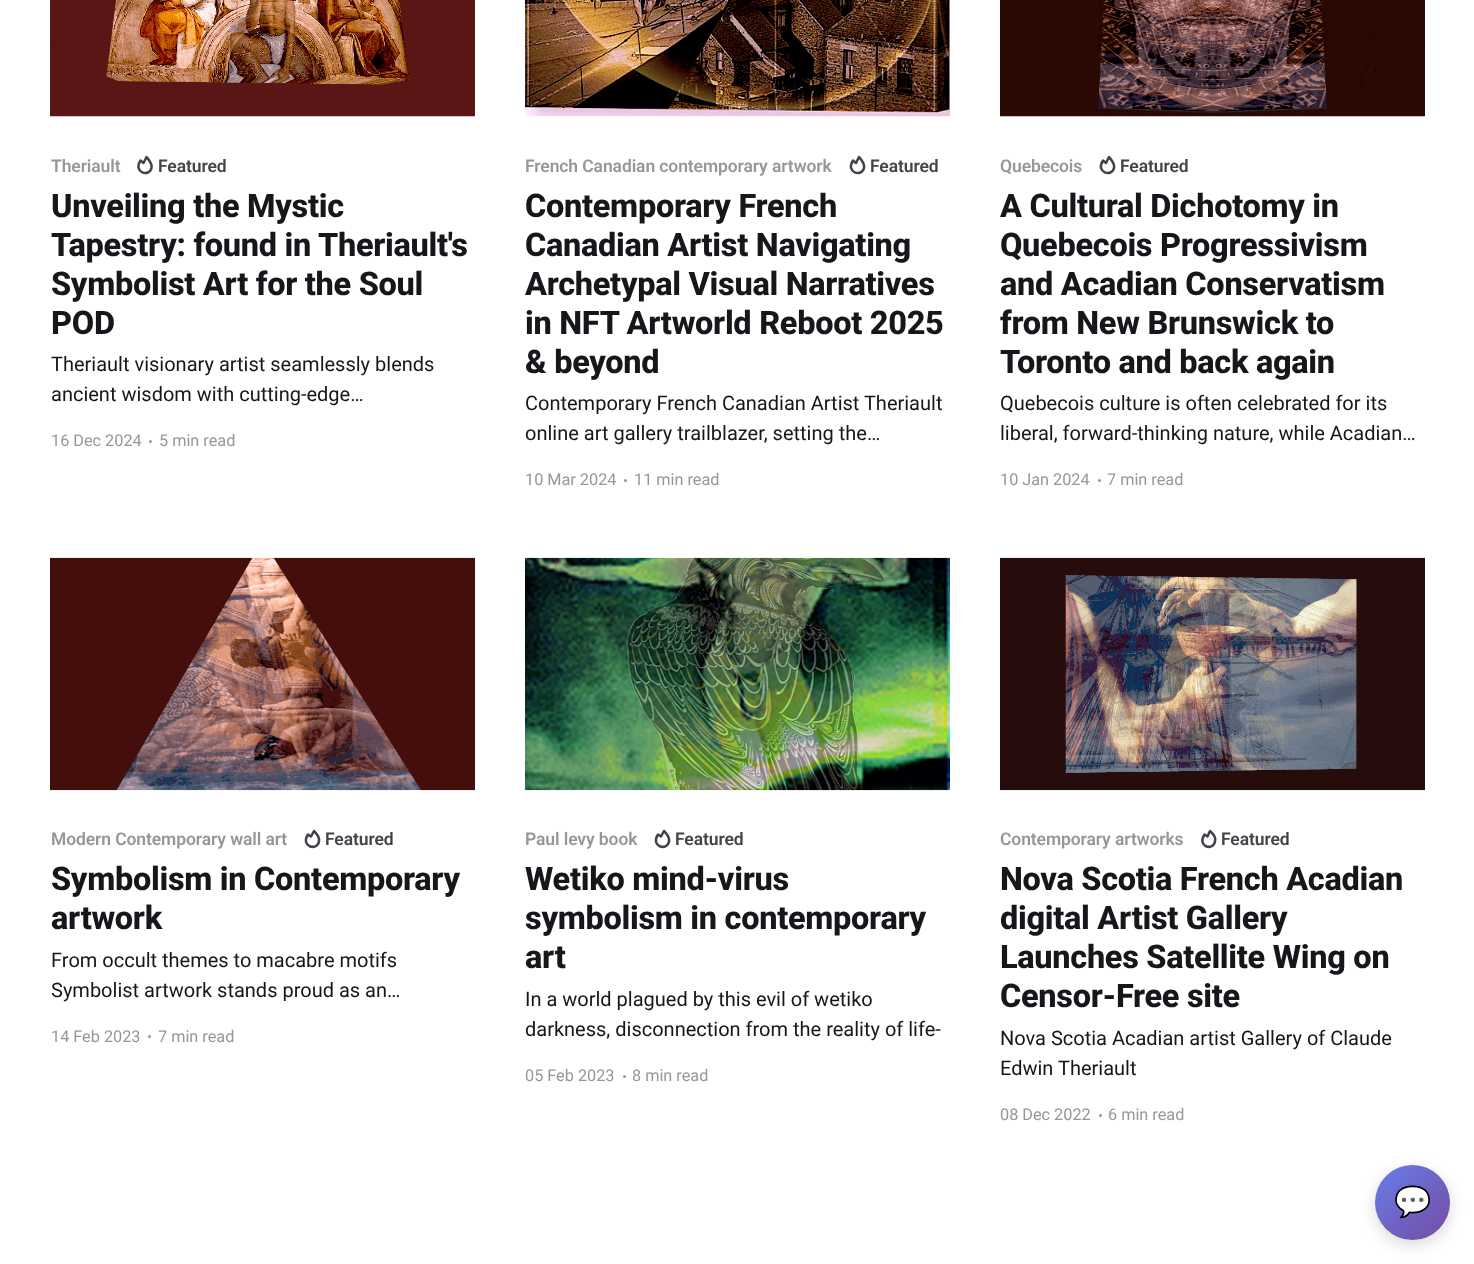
async function draw(canvas) {
  canvas.width = 1474
  canvas.height = 1264
  const ctx = canvas.getContext('2d')
  ctx.miterLimit = 4
  ctx.fontKerning = 'normal'
  async function loadImage(src) {
    const img = new Image()
    img.src = src
    await img.decode()
    return img
  }
  let gradient

  ctx.fillStyle = '#fff'
  ctx.fillRect(0, 0, 1474, 1264)
  ctx.drawImage(await loadImage('image0.png'), 50, 0, 425, 117)
  ctx.letterSpacing = '-0.1px'
  ctx.font = '600 17.5px Roboto'
  ctx.fillStyle = '#979797'
  ctx.fillText('Theriault', 51, 172)
  ctx.beginPath()
  ctx.moveTo(140.5, 160.5)
  ctx.bezierCurveTo(132.5, 172.5, 149.5, 177.5, 151.5, 168)
  ctx.bezierCurveTo(152.5, 163.5, 149, 160, 146.5, 157)
  ctx.lineTo(143.5, 163)
  ctx.closePath()
  ctx.strokeStyle = '#464149'
  ctx.lineWidth = 2.5
  ctx.lineCap = 'round'
  ctx.lineJoin = 'round'
  ctx.stroke()
  ctx.fillStyle = '#464149'
  ctx.fillText('Featured', 158, 172)
  ctx.letterSpacing = '-0.3px'
  ctx.font = '800 32.5px Roboto'
  ctx.fillStyle = '#15171a'
  ctx.fillText('Unveiling the Mystic', 51, 217)
  ctx.fillText('Tapestry: found in Theriault\'s', 51, 256)
  ctx.fillText('Symbolist Art for the Soul', 51, 295)
  ctx.fillText('POD', 51, 334)
  ctx.letterSpacing = '0px'
  ctx.font = '20px Roboto'
  ctx.fillText('Theriault visionary artist seamlessly blends', 51, 371)
  ctx.fillText('ancient wisdom with cutting-edge…', 51, 401)
  ctx.font = '16.25px Roboto'
  ctx.fillStyle = '#979797'
  ctx.fillText('16 Dec 2024', 51, 446)
  ctx.beginPath()
  ctx.arc(150.5, 441.5, 1.5, 0, 2 * Math.PI)
  ctx.fill()
  ctx.fillText('5 min read', 159, 446)
  ctx.drawImage(await loadImage('image1.png'), 525, 0, 425, 117)
  ctx.letterSpacing = '-0.1px'
  ctx.font = '600 17.5px Roboto'
  ctx.fillText('French Canadian contemporary artwork', 525, 172)
  ctx.beginPath()
  ctx.moveTo(853, 160.5)
  ctx.bezierCurveTo(845, 172.5, 862, 177.5, 864, 168)
  ctx.bezierCurveTo(865, 163.5, 861.5, 160, 859, 157)
  ctx.lineTo(856, 163)
  ctx.closePath()
  ctx.stroke()
  ctx.fillStyle = '#464149'
  ctx.fillText('Featured', 870, 172)
  ctx.letterSpacing = '-0.3px'
  ctx.font = '800 32.5px Roboto'
  ctx.fillStyle = '#15171a'
  ctx.fillText('Contemporary French', 525, 217)
  ctx.fillText('Canadian Artist Navigating', 525, 256)
  ctx.fillText('Archetypal Visual Narratives', 525, 295)
  ctx.fillText('in NFT Artworld Reboot 2025', 525, 334)
  ctx.fillText('& beyond', 525, 373)
  ctx.letterSpacing = '0px'
  ctx.font = '20px Roboto'
  ctx.fillText('Contemporary French Canadian Artist Theriault', 525, 410)
  ctx.fillText('online art gallery trailblazer, setting the…', 525, 440)
  ctx.font = '16.25px Roboto'
  ctx.fillStyle = '#979797'
  ctx.fillText('10 Mar 2024', 525, 485)
  ctx.beginPath()
  ctx.arc(625.5, 480.5, 1.5, 0, 2 * Math.PI)
  ctx.fill()
  ctx.fillText('11 min read', 634, 485)
  ctx.drawImage(await loadImage('image2.png'), 1000, 0, 425, 117)
  ctx.letterSpacing = '-0.1px'
  ctx.font = '600 17.5px Roboto'
  ctx.fillText('Quebecois', 1000, 172)
  ctx.beginPath()
  ctx.moveTo(1103, 160.5)
  ctx.bezierCurveTo(1095, 172.5, 1112, 177.5, 1114, 168)
  ctx.bezierCurveTo(1115, 163.5, 1111.5, 160, 1109, 157)
  ctx.lineTo(1106, 163)
  ctx.closePath()
  ctx.stroke()
  ctx.fillStyle = '#464149'
  ctx.fillText('Featured', 1120, 172)
  ctx.letterSpacing = '-0.3px'
  ctx.font = '800 32.5px Roboto'
  ctx.fillStyle = '#15171a'
  ctx.fillText('A Cultural Dichotomy in', 1000, 217)
  ctx.fillText('Quebecois Progressivism', 1000, 256)
  ctx.fillText('and Acadian Conservatism', 1000, 295)
  ctx.fillText('from New Brunswick to', 1000, 334)
  ctx.fillText('Toronto and back again', 1000, 373)
  ctx.letterSpacing = '0px'
  ctx.font = '20px Roboto'
  ctx.fillText('Quebecois culture is often celebrated for its', 1000, 410)
  ctx.fillText('liberal, forward-thinking nature, while Acadian…', 1000, 440)
  ctx.font = '16.25px Roboto'
  ctx.fillStyle = '#979797'
  ctx.fillText('10 Jan 2024', 1000, 485)
  ctx.beginPath()
  ctx.arc(1099.5, 480.5, 1.5, 0, 2 * Math.PI)
  ctx.fill()
  ctx.fillText('7 min read', 1107, 485)
  ctx.drawImage(await loadImage('image3.png'), 50, 557, 425, 234)
  ctx.letterSpacing = '-0.1px'
  ctx.font = '600 17.5px Roboto'
  ctx.fillText('Modern Contemporary wall art', 51, 845)
  ctx.beginPath()
  ctx.moveTo(308, 834.5)
  ctx.bezierCurveTo(300, 846.5, 317, 851.5, 319, 841.5)
  ctx.bezierCurveTo(320, 837.5, 316.5, 833.5, 314, 831)
  ctx.lineTo(311, 836.5)
  ctx.closePath()
  ctx.stroke()
  ctx.fillStyle = '#464149'
  ctx.fillText('Featured', 325, 845)
  ctx.letterSpacing = '-0.3px'
  ctx.font = '800 32.5px Roboto'
  ctx.fillStyle = '#15171a'
  ctx.fillText('Symbolism in Contemporary', 51, 890)
  ctx.fillText('artwork', 51, 929)
  ctx.letterSpacing = '0px'
  ctx.font = '20px Roboto'
  ctx.fillText('From occult themes to macabre motifs', 51, 967)
  ctx.fillText('Symbolist artwork stands proud as an…', 51, 997)
  ctx.font = '16.25px Roboto'
  ctx.fillStyle = '#979797'
  ctx.fillText('14 Feb 2023', 51, 1042)
  ctx.beginPath()
  ctx.arc(149.5, 1036.5, 1.5, 0, 2 * Math.PI)
  ctx.fill()
  ctx.fillText('7 min read', 158, 1042)
  ctx.drawImage(await loadImage('image4.png'), 525, 557, 425, 234)
  ctx.letterSpacing = '-0.1px'
  ctx.font = '600 17.5px Roboto'
  ctx.fillText('Paul levy book', 525, 845)
  ctx.beginPath()
  ctx.moveTo(658, 834.5)
  ctx.bezierCurveTo(650, 846.5, 667, 851.5, 669, 841.5)
  ctx.bezierCurveTo(670, 837.5, 666.5, 833.5, 664, 831)
  ctx.lineTo(661, 836.5)
  ctx.closePath()
  ctx.stroke()
  ctx.fillStyle = '#464149'
  ctx.fillText('Featured', 675, 845)
  ctx.letterSpacing = '-0.3px'
  ctx.font = '800 32.5px Roboto'
  ctx.fillStyle = '#15171a'
  ctx.fillText('Wetiko mind-virus', 525, 890)
  ctx.fillText('symbolism in contemporary', 525, 929)
  ctx.fillText('art', 525, 968)
  ctx.letterSpacing = '0px'
  ctx.font = '20px Roboto'
  ctx.fillText('In a world plagued by this evil of wetiko', 525, 1006)
  ctx.fillText('darkness, disconnection from the reality of life-', 525, 1036)
  ctx.font = '16.25px Roboto'
  ctx.fillStyle = '#979797'
  ctx.fillText('05 Feb 2023', 525, 1081)
  ctx.beginPath()
  ctx.arc(624.5, 1076.5, 1.5, 0, 2 * Math.PI)
  ctx.fill()
  ctx.fillText('8 min read', 632, 1081)
  ctx.drawImage(await loadImage('image5.png'), 1000, 557, 425, 234)
  ctx.letterSpacing = '-0.1px'
  ctx.font = '600 17.5px Roboto'
  ctx.fillText('Contemporary artworks', 1000, 845)
  ctx.beginPath()
  ctx.moveTo(1204.5, 834.5)
  ctx.bezierCurveTo(1196.5, 846.5, 1213, 851.5, 1215, 841.5)
  ctx.bezierCurveTo(1216, 837.5, 1213, 833.5, 1210, 831)
  ctx.lineTo(1207.5, 836.5)
  ctx.closePath()
  ctx.stroke()
  ctx.fillStyle = '#464149'
  ctx.fillText('Featured', 1221, 845)
  ctx.letterSpacing = '-0.3px'
  ctx.font = '800 32.5px Roboto'
  ctx.fillStyle = '#15171a'
  ctx.fillText('Nova Scotia French Acadian', 1000, 890)
  ctx.fillText('digital Artist Gallery', 1000, 929)
  ctx.fillText('Launches Satellite Wing on', 1000, 968)
  ctx.fillText('Censor-Free site', 1000, 1007)
  ctx.letterSpacing = '0px'
  ctx.font = '20px Roboto'
  ctx.fillText('Nova Scotia Acadian artist Gallery of Claude', 1000, 1045)
  ctx.fillText('Edwin Theriault', 1000, 1075)
  ctx.font = '16.25px Roboto'
  ctx.fillStyle = '#979797'
  ctx.fillText('08 Dec 2022', 1000, 1120)
  ctx.beginPath()
  ctx.arc(1100.5, 1115.5, 1.5, 0, 2 * Math.PI)
  ctx.fill()
  ctx.fillText('6 min read', 1108, 1120)
  ctx.fillStyle = '#00000026'
  ctx.filter = 'blur(7.5px)'
  ctx.beginPath()
  ctx.roundRect(1375, 1170, 75, 75, 37.5)
  ctx.fill()
  ctx.filter = 'none'
  gradient = ctx.createLinearGradient(1375, 1165, 1450, 1240)
  gradient.addColorStop(0, '#667eea')
  gradient.addColorStop(1, '#764ba2')
  ctx.fillStyle = gradient
  ctx.beginPath()
  ctx.arc(1412.5, 1202.5, 37.5, 0, 2 * Math.PI)
  ctx.fill()
  ctx.font = '30px Noto Color Emoji'
  ctx.fillStyle = '#fff'
  ctx.fillText('💬', 1394, 1212)
}

draw(document.querySelector('canvas'))
